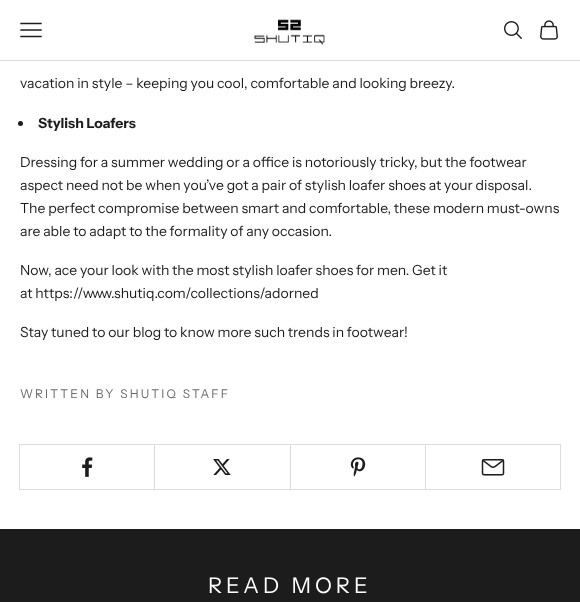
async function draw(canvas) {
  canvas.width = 580
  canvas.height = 602
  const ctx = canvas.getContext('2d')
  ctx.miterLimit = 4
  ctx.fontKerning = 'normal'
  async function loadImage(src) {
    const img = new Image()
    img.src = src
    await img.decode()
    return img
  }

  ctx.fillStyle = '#fff'
  ctx.fillRect(0, 0, 580, 602)
  ctx.fillStyle = '#ddd'
  ctx.fillRect(0, 60, 580, 1)
  ctx.beginPath()
  ctx.moveTo(21, 36.5)
  ctx.lineTo(41, 36.5)
  ctx.moveTo(21, 30)
  ctx.lineTo(41, 30)
  ctx.moveTo(21, 23.5)
  ctx.lineTo(41, 23.5)
  ctx.strokeStyle = '#1c1c1c'
  ctx.lineWidth = 1.4
  ctx.lineCap = 'square'
  ctx.stroke()
  ctx.drawImage(await loadImage('image0.png'), 254, 19, 71, 26)
  ctx.drawImage(await loadImage('image1.png'), 504, 21, 18, 18)
  ctx.drawImage(await loadImage('image2.png'), 540, 20, 18, 20)
  ctx.font = '14px Instrument Sans'
  ctx.fillStyle = '#1c1c1c'
  ctx.fillText('vacation in style – keeping you cool, comfortable and looking breezy.', 20, 88)
  ctx.beginPath()
  ctx.arc(20.5, 123.5, 2.5, 0, 2 * Math.PI)
  ctx.fill()
  ctx.font = 'bold 14px Instrument Sans'
  ctx.fillText('Stylish Loafers', 38, 128)
  ctx.font = '14px Instrument Sans'
  ctx.fillText('Dressing for a summer wedding or a office is notoriously tricky, but the footwear', 20, 167)
  ctx.fillText('aspect need not be when you’ve got a pair of stylish loafer shoes at your disposal.', 20, 190)
  ctx.fillText('The perfect compromise between smart and comfortable, these modern must-owns', 20, 213)
  ctx.fillText('are able to adapt to the formality of any occasion.', 20, 236)
  ctx.fillText('Now, ace your look with the most stylish loafer shoes for men. Get it', 20, 275)
  ctx.fillText('at https://www.shutiq.com/collections/adorned', 20, 298)
  ctx.fillText('Stay tuned to our blog to know more such trends in footwear!', 20, 337)
  ctx.letterSpacing = '2.2px'
  ctx.font = '12px Instrument Sans'
  ctx.fillStyle = '#6b6b6b'
  ctx.fillText('WRITTEN BY SHUTIQ STAFF', 20, 398)
  ctx.strokeStyle = '#ddd'
  ctx.lineWidth = 1
  ctx.strokeRect(19.5, 444.5, 135, 45)
  ctx.drawImage(await loadImage('image3.png'), 82, 457, 11, 20)
  ctx.strokeRect(154.5, 444.5, 136, 45)
  ctx.drawImage(await loadImage('image4.png'), 213, 459, 18, 16)
  ctx.strokeRect(290.5, 444.5, 135, 45)
  ctx.drawImage(await loadImage('image5.png'), 350, 457, 16, 20)
  ctx.strokeRect(425.5, 444.5, 135, 45)
  ctx.drawImage(await loadImage('image6.png'), 481, 459, 24, 17)
  ctx.fillStyle = '#1c1c1c'
  ctx.fillRect(0, 529, 580, 73)
  ctx.letterSpacing = '4px'
  ctx.font = '21.5px Instrument Sans'
  ctx.fillStyle = '#fff'
  ctx.fillText('READ MORE', 208, 593)
}

draw(document.querySelector('canvas'))
